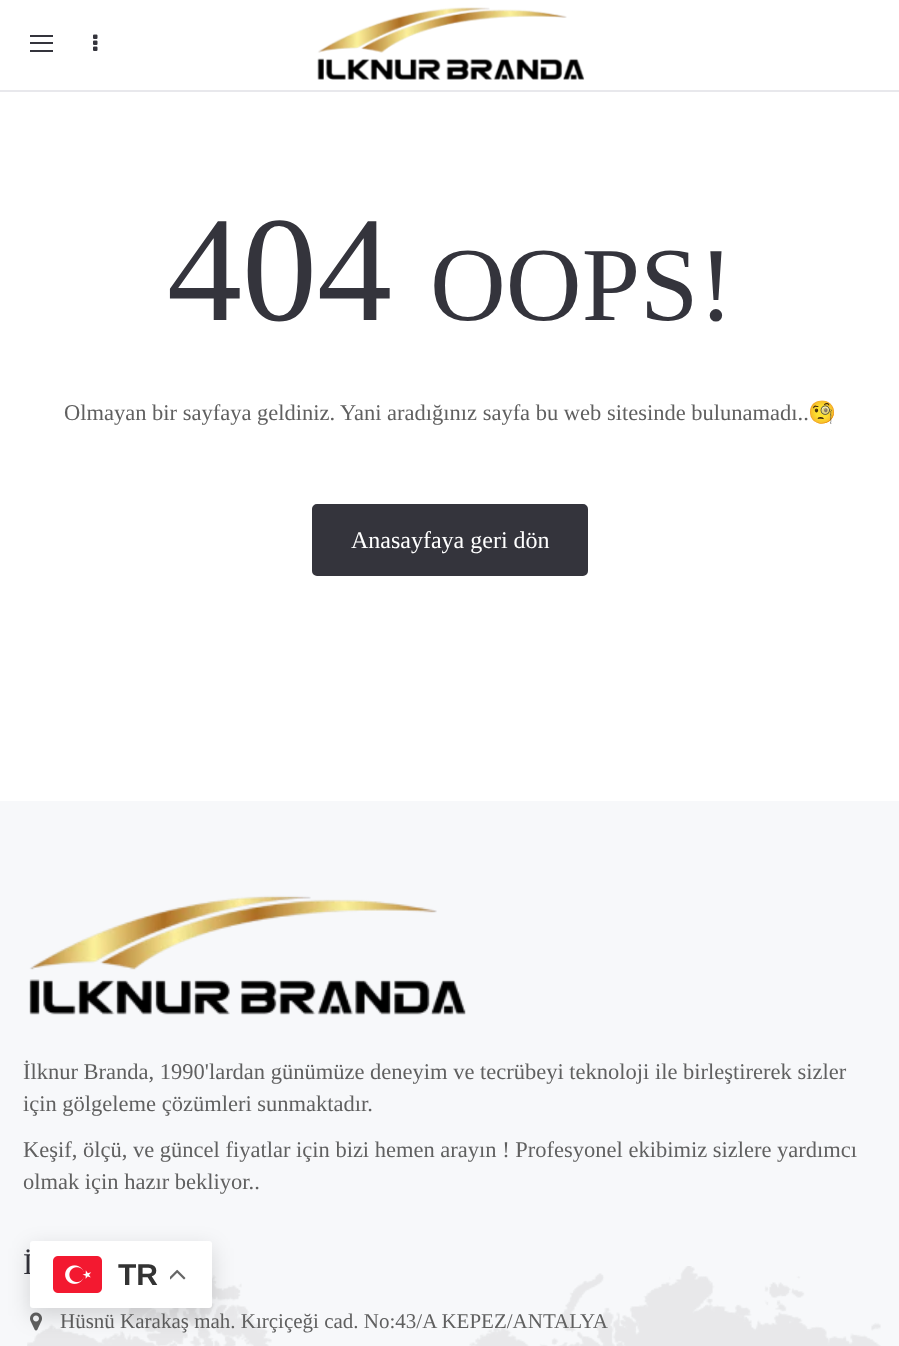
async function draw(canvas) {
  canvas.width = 899
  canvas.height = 1346
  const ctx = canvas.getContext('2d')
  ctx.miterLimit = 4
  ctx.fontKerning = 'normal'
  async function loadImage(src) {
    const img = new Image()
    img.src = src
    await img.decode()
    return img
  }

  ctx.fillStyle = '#fff'
  ctx.fillRect(0, 0, 899, 1346)
  ctx.fillStyle = '#e8e8ec'
  ctx.fillRect(0, 90, 899, 2)
  ctx.fillStyle = '#34343c'
  ctx.fillRect(30, 50, 23, 2)
  ctx.fillRect(30, 35, 23, 2)
  ctx.fillRect(30, 42, 23, 2)
  ctx.drawImage(await loadImage('image0.png'), 93, 34, 5, 17)
  ctx.drawImage(await loadImage('image1.png'), 317, 7, 268, 73)
  ctx.font = '150px Liberation Serif'
  ctx.fillText('404', 167, 320)
  ctx.font = '105px Liberation Serif'
  ctx.fillText('OOPS!', 430, 320)
  ctx.font = '22.5px Liberation Serif'
  ctx.fillStyle = '#606060'
  ctx.fillText('Olmayan bir sayfaya geldiniz. Yani aradığınız sayfa bu web sitesinde bulunamadı..', 64, 420)
  ctx.font = '22.5px Noto Color Emoji'
  ctx.fillText('🧐', 808, 420)
  ctx.fillStyle = '#34343c'
  ctx.beginPath()
  ctx.roundRect(313, 505, 274, 70, 4)
  ctx.fill()
  ctx.strokeStyle = '#34343c'
  ctx.lineWidth = 2
  ctx.stroke()
  ctx.font = '24px Liberation Serif'
  ctx.fillStyle = '#fff'
  ctx.fillText('Anasayfaya geri dön', 351, 548)
  ctx.fillStyle = '#f7f8fa'
  ctx.fillRect(0, 801, 899, 545)
  ctx.drawImage(await loadImage('image2.png'), 29, 895, 437, 120)
  ctx.font = '22.5px Liberation Serif'
  ctx.fillStyle = '#606060'
  ctx.fillText('İlknur Branda, 1990\'lardan günümüze deneyim ve tecrübeyi teknoloji ile birleştirerek sizler', 23, 1079)
  ctx.fillText('için gölgeleme çözümleri sunmaktadır.', 23, 1111)
  ctx.fillText('Keşif, ölçü, ve güncel fiyatlar için bizi hemen arayın ! Profesyonel ekibimiz sizlere yardımcı', 23, 1157)
  ctx.fillText('olmak için hazır bekliyor..', 23, 1189)
  ctx.drawImage(await loadImage('image3.png'), 27, 1266, 854, 80)
  ctx.font = '30px Liberation Serif'
  ctx.fillStyle = '#34343c'
  ctx.fillText('İ', 23, 1274)
  ctx.drawImage(await loadImage('image4.png'), 30, 1312, 12, 19)
  ctx.font = '21px Liberation Serif'
  ctx.fillStyle = '#606060'
  ctx.fillText('Hüsnü Karakaş mah. Kırçiçeği cad. No:43/A KEPEZ/ANTALYA', 60, 1328)
  ctx.fillStyle = '#00000026'
  ctx.filter = 'blur(11px)'
  ctx.beginPath()
  ctx.roundRect(30, 1248, 182, 68, 3)
  ctx.fill()
  ctx.filter = 'none'
  ctx.fillStyle = '#fff'
  ctx.beginPath()
  ctx.roundRect(30, 1241, 182, 67, 3)
  ctx.fill()
  ctx.drawImage(await loadImage('image5.png'), 53, 1256, 49, 37)
  ctx.font = 'bold 30px Liberation Sans'
  ctx.fillStyle = '#333'
  ctx.fillText('TR', 118, 1285)
  ctx.drawImage(await loadImage('image6.png'), 170, 1269, 16, 11)
}

draw(document.querySelector('canvas'))
